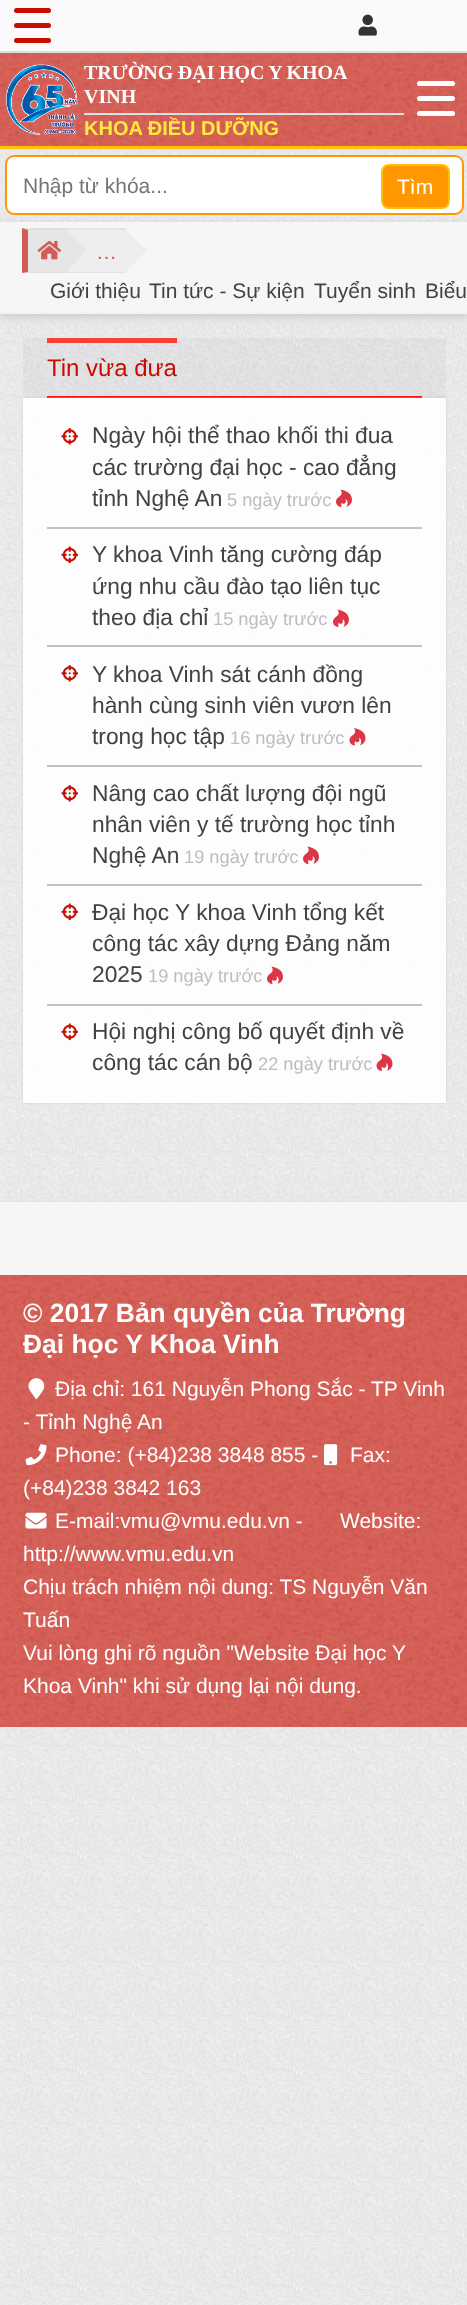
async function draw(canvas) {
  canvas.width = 467
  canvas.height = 2305
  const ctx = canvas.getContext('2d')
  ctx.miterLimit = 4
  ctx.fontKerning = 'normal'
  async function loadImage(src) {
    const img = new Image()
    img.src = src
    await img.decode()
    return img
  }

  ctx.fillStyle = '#fff'
  ctx.fillRect(0, 0, 467, 2305)
  ctx.drawImage(await loadImage('image0.png'), 0, 149, 467, 2156)
  ctx.fillStyle = '#e4e4e4'
  ctx.filter = 'blur(1px)'
  ctx.beginPath()
  ctx.rect(-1, -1, 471, 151)
  ctx.fill()
  ctx.filter = 'none'
  ctx.fillStyle = '#fafafa'
  ctx.fillRect(0, 0, 467, 51)
  ctx.fillStyle = '#ddd'
  ctx.fillRect(0, 51, 467, 2)
  ctx.fillStyle = '#c70e01'
  ctx.beginPath()
  ctx.roundRect(14, 8, 37, 5, 2.5)
  ctx.fill()
  ctx.beginPath()
  ctx.roundRect(14, 23, 37, 5, 2.5)
  ctx.fill()
  ctx.beginPath()
  ctx.roundRect(14, 38, 37, 5, 2.5)
  ctx.fill()
  ctx.drawImage(await loadImage('image1.png'), 358, 14, 19, 22)
  ctx.drawImage(await loadImage('image2.png'), 0, 53, 467, 93)
  ctx.fillStyle = '#ffc107'
  ctx.fillRect(0, 146, 467, 3)
  ctx.drawImage(await loadImage('image3.png'), 6, 64, 72, 71)
  ctx.wordSpacing = '-0.5px'
  ctx.font = 'bold 20px Liberation Serif'
  ctx.fillStyle = '#fff'
  ctx.fillText('TRƯỜNG ĐẠI HỌC Y KHOA', 84, 79)
  ctx.wordSpacing = '0px'
  ctx.fillText('VINH', 84, 103)
  ctx.fillStyle = '#dee2e6'
  ctx.fillRect(84, 113, 320, 2)
  ctx.font = 'bold 20px Liberation Sans'
  ctx.fillStyle = '#ffeb3b'
  ctx.fillText('KHOA ĐIỀU DƯỠNG', 84, 135)
  ctx.fillStyle = '#fff'
  ctx.beginPath()
  ctx.roundRect(417, 81, 38, 5, 2.5)
  ctx.fill()
  ctx.beginPath()
  ctx.roundRect(417, 96, 38, 5, 2.5)
  ctx.fill()
  ctx.beginPath()
  ctx.roundRect(417, 111, 38, 5, 2.5)
  ctx.fill()
  ctx.fillStyle = '#ccc'
  ctx.filter = 'blur(4px)'
  ctx.beginPath()
  ctx.rect(0, 225, 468, 92)
  ctx.fill()
  ctx.filter = 'none'
  ctx.fillStyle = '#fff'
  ctx.beginPath()
  ctx.roundRect(6, 156, 457, 58, 8)
  ctx.fill()
  ctx.strokeStyle = '#ff9800'
  ctx.lineWidth = 2
  ctx.stroke()
  ctx.save()
  ctx.beginPath()
  ctx.rect(23, 173, 363, 24)
  ctx.clip()
  ctx.font = '21px Liberation Sans'
  ctx.fillStyle = '#757575'
  ctx.fillText('Nhập từ khóa...', 23, 193)
  ctx.restore()
  ctx.fillStyle = '#ff9800'
  ctx.beginPath()
  ctx.roundRect(382, 165, 67, 43, 7)
  ctx.fill()
  ctx.strokeStyle = '#ffc107'
  ctx.stroke()
  ctx.font = '21px Liberation Sans'
  ctx.fillStyle = '#fff'
  ctx.fillText('Tìm', 397, 194)
  ctx.fillStyle = '#f6f6f6'
  ctx.fillRect(0, 222, 467, 90)
  ctx.fillStyle = '#f3f3f3'
  ctx.fillRect(0, 312, 467, 2)
  ctx.fillStyle = '#e6e6e6'
  ctx.fillRect(23, 228, 43, 45)
  ctx.fillStyle = '#e6dcdb'
  ctx.beginPath()
  ctx.moveTo(22, 228)
  ctx.lineTo(66, 228)
  ctx.lineTo(66, 230)
  ctx.lineTo(28, 230)
  ctx.closePath()
  ctx.moveTo(66, 273)
  ctx.lineTo(22, 273)
  ctx.lineTo(28, 272)
  ctx.lineTo(66, 272)
  ctx.closePath()
  ctx.fill()
  ctx.fillStyle = '#d05e56'
  ctx.beginPath()
  ctx.moveTo(22, 273)
  ctx.lineTo(22, 228)
  ctx.lineTo(28, 230)
  ctx.lineTo(28, 272)
  ctx.closePath()
  ctx.fill()
  ctx.drawImage(await loadImage('image4.png'), 37, 240, 25, 20)
  ctx.fillStyle = '#eee'
  ctx.fillRect(66, 228, 60, 45)
  ctx.fillStyle = '#ebe1e0'
  ctx.beginPath()
  ctx.moveTo(66, 228)
  ctx.lineTo(126, 228)
  ctx.lineTo(126, 230)
  ctx.lineTo(68, 230)
  ctx.closePath()
  ctx.moveTo(126, 273)
  ctx.lineTo(66, 273)
  ctx.lineTo(68, 272)
  ctx.lineTo(126, 272)
  ctx.closePath()
  ctx.fill()
  ctx.fillStyle = '#e7cac85c'
  ctx.beginPath()
  ctx.moveTo(66, 273)
  ctx.lineTo(66, 228)
  ctx.lineTo(68, 230)
  ctx.lineTo(68, 272)
  ctx.closePath()
  ctx.fill()
  ctx.fillStyle = '#e6e6e6'
  ctx.beginPath()
  ctx.moveTo(66, 272)
  ctx.lineTo(66, 230)
  ctx.lineTo(87, 250)
  ctx.closePath()
  ctx.fill()
  ctx.fillStyle = '#d05e56'
  ctx.fillText('…', 96, 259)
  ctx.fillStyle = '#eee'
  ctx.beginPath()
  ctx.moveTo(126, 272)
  ctx.lineTo(126, 230)
  ctx.lineTo(147, 250)
  ctx.closePath()
  ctx.fill()
  ctx.fillStyle = '#424242'
  ctx.fillText('Giới thiệu', 50, 298)
  ctx.fillText('Tin tức - Sự kiện', 149, 298)
  ctx.fillText('Tuyển sinh', 314, 298)
  ctx.fillText('Biểu', 425, 298)
  ctx.save()
  ctx.beginPath()
  ctx.moveTo(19, 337)
  ctx.lineTo(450, 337)
  ctx.lineTo(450, 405)
  ctx.lineTo(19, 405)
  ctx.closePath()
  ctx.moveTo(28, 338)
  ctx.lineTo(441, 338)
  ctx.bezierCurveTo(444, 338, 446, 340, 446, 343)
  ctx.lineTo(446, 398)
  ctx.lineTo(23, 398)
  ctx.lineTo(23, 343)
  ctx.bezierCurveTo(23, 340, 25, 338, 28, 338)
  ctx.closePath()
  ctx.clip('evenodd')
  ctx.fillStyle = '#eee'
  ctx.filter = 'blur(1px)'
  ctx.beginPath()
  ctx.roundRect(23, 341, 423, 60, 5)
  ctx.fill()
  ctx.filter = 'none'
  ctx.restore()
  ctx.fillStyle = '#00000008'
  ctx.fillRect(23, 338, 423, 58)
  ctx.fillStyle = '#e0e0e0'
  ctx.fillRect(23, 396, 423, 2)
  ctx.fillStyle = '#f44336'
  ctx.fillRect(47, 338, 130, 5)
  ctx.font = '24px Liberation Sans'
  ctx.fillStyle = '#c80c00'
  ctx.fillText('Tin vừa đưa', 47, 376)
  ctx.fillStyle = '#f00'
  ctx.fillRect(47, 396, 375, 2)
  ctx.save()
  ctx.beginPath()
  ctx.moveTo(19, 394)
  ctx.lineTo(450, 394)
  ctx.lineTo(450, 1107)
  ctx.lineTo(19, 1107)
  ctx.closePath()
  ctx.moveTo(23, 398)
  ctx.lineTo(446, 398)
  ctx.lineTo(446, 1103)
  ctx.lineTo(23, 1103)
  ctx.closePath()
  ctx.clip('evenodd')
  ctx.fillStyle = '#ccc'
  ctx.filter = 'blur(1px)'
  ctx.beginPath()
  ctx.rect(23, 398, 423, 705)
  ctx.fill()
  ctx.filter = 'none'
  ctx.restore()
  ctx.fillStyle = '#ffffffe6'
  ctx.fillRect(23, 398, 423, 705)
  ctx.drawImage(await loadImage('image5.png'), 61, 428, 17, 17)
  ctx.font = '22.75px Liberation Sans'
  ctx.fillStyle = '#424242'
  ctx.fillText('Ngày hội thể thao khối thi đua', 92, 443)
  ctx.fillText('các trường đại học - cao đẳng', 92, 475)
  ctx.fillText('tỉnh Nghệ An', 92, 506)
  ctx.font = '18.25px Liberation Sans'
  ctx.fillStyle = '#bdbdbd'
  ctx.fillText('5 ngày trước', 227, 506)
  ctx.drawImage(await loadImage('image6.png'), 336, 489, 16, 19)
  ctx.fillStyle = '#c1c1c1'
  ctx.fillRect(47, 527, 375, 2)
  ctx.drawImage(await loadImage('image7.png'), 61, 546, 17, 18)
  ctx.font = '22.75px Liberation Sans'
  ctx.fillStyle = '#424242'
  ctx.fillText('Y khoa Vinh tăng cường đáp', 92, 562)
  ctx.fillText('ứng nhu cầu đào tạo liên tục', 92, 594)
  ctx.fillText('theo địa chỉ', 92, 625)
  ctx.font = '18.25px Liberation Sans'
  ctx.fillStyle = '#bdbdbd'
  ctx.fillText('15 ngày trước', 213, 625)
  ctx.drawImage(await loadImage('image8.png'), 333, 609, 16, 19)
  ctx.fillStyle = '#c1c1c1'
  ctx.fillRect(47, 645, 375, 2)
  ctx.drawImage(await loadImage('image9.png'), 61, 665, 17, 17)
  ctx.font = '22.75px Liberation Sans'
  ctx.fillStyle = '#424242'
  ctx.fillText('Y khoa Vinh sát cánh đồng', 92, 682)
  ctx.fillText('hành cùng sinh viên vươn lên', 92, 713)
  ctx.fillText('trong học tập', 92, 744)
  ctx.font = '18.25px Liberation Sans'
  ctx.fillStyle = '#bdbdbd'
  ctx.fillText('16 ngày trước', 230, 744)
  ctx.drawImage(await loadImage('image10.png'), 349, 728, 17, 18)
  ctx.fillStyle = '#c1c1c1'
  ctx.fillRect(47, 765, 375, 2)
  ctx.drawImage(await loadImage('image11.png'), 61, 785, 17, 17)
  ctx.font = '22.75px Liberation Sans'
  ctx.fillStyle = '#424242'
  ctx.fillText('Nâng cao chất lượng đội ngũ', 92, 801)
  ctx.fillText('nhân viên y tế trường học tỉnh', 92, 832)
  ctx.fillText('Nghệ An', 92, 863)
  ctx.font = '18.25px Liberation Sans'
  ctx.fillStyle = '#bdbdbd'
  ctx.fillText('19 ngày trước', 184, 863)
  ctx.drawImage(await loadImage('image12.png'), 303, 846, 16, 19)
  ctx.fillStyle = '#c1c1c1'
  ctx.fillRect(47, 884, 375, 2)
  ctx.drawImage(await loadImage('image13.png'), 61, 903, 17, 18)
  ctx.font = '22.75px Liberation Sans'
  ctx.fillStyle = '#424242'
  ctx.fillText('Đại học Y khoa Vinh tổng kết', 92, 920)
  ctx.fillText('công tác xây dựng Đảng năm', 92, 951)
  ctx.fillText('2025', 92, 982)
  ctx.font = '18.25px Liberation Sans'
  ctx.fillStyle = '#bdbdbd'
  ctx.fillText('19 ngày trước', 148, 982)
  ctx.drawImage(await loadImage('image14.png'), 267, 966, 16, 19)
  ctx.fillStyle = '#c1c1c1'
  ctx.fillRect(47, 1004, 375, 2)
  ctx.drawImage(await loadImage('image15.png'), 61, 1023, 17, 18)
  ctx.font = '22.75px Liberation Sans'
  ctx.fillStyle = '#424242'
  ctx.fillText('Hội nghị công bố quyết định về', 92, 1039)
  ctx.fillText('công tác cán bộ', 92, 1070)
  ctx.font = '18.25px Liberation Sans'
  ctx.fillStyle = '#bdbdbd'
  ctx.fillText('22 ngày trước', 258, 1070)
  ctx.drawImage(await loadImage('image16.png'), 376, 1053, 17, 19)
  ctx.fillStyle = '#eee'
  ctx.fillRect(0, 1199, 467, 2)
  ctx.fillStyle = '#ccc'
  ctx.filter = 'blur(4px)'
  ctx.beginPath()
  ctx.rect(0, 1205, 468, 73)
  ctx.fill()
  ctx.filter = 'none'
  ctx.fillStyle = '#f6f6f6'
  ctx.fillRect(0, 1202, 467, 72)
  ctx.fillStyle = '#f3f3f3'
  ctx.fillRect(0, 1274, 467, 1)
  ctx.fillStyle = '#d05e56'
  ctx.fillRect(0, 1726, 467, 1)
  ctx.drawImage(await loadImage('image17.png'), 0, 1275, 467, 452)
  ctx.font = 'bold 26.4px Liberation Sans'
  ctx.fillStyle = '#fff'
  ctx.fillText('© 2017 Bản quyền của Trường', 23, 1322)
  ctx.fillText('Đại học Y Khoa Vinh', 23, 1353)
  ctx.drawImage(await loadImage('image18.png'), 28, 1378, 17, 22)
  ctx.font = '21px Liberation Sans'
  ctx.fillText('Địa chỉ: 161 Nguyễn Phong Sắc - TP Vinh', 55, 1396)
  ctx.fillText('- Tỉnh Nghệ An', 23, 1429)
  ctx.drawImage(await loadImage('image19.png'), 25, 1444, 22, 22)
  ctx.fillText('Phone: (+84)238 3848 855 -', 55, 1462)
  ctx.drawImage(await loadImage('image20.png'), 324, 1444, 14, 22)
  ctx.fillText('Fax:', 350, 1462)
  ctx.fillText('(+84)238 3842 163', 23, 1495)
  ctx.drawImage(await loadImage('image21.png'), 25, 1512, 22, 17)
  ctx.fillText('E-mail:vmu@vmu.edu.vn -', 55, 1528)
  ctx.fillText('Website:', 340, 1528)
  ctx.fillText('http://www.vmu.edu.vn', 23, 1561)
  ctx.fillText('Chịu trách nhiệm nội dung: TS Nguyễn Văn', 23, 1594)
  ctx.fillText('Tuấn', 23, 1627)
  ctx.fillText('Vui lòng ghi rõ nguồn "Website Đại học Y', 23, 1660)
  ctx.fillText('Khoa Vinh" khi sử dụng lại nội dung.', 23, 1693)
}

draw(document.querySelector('canvas'))
